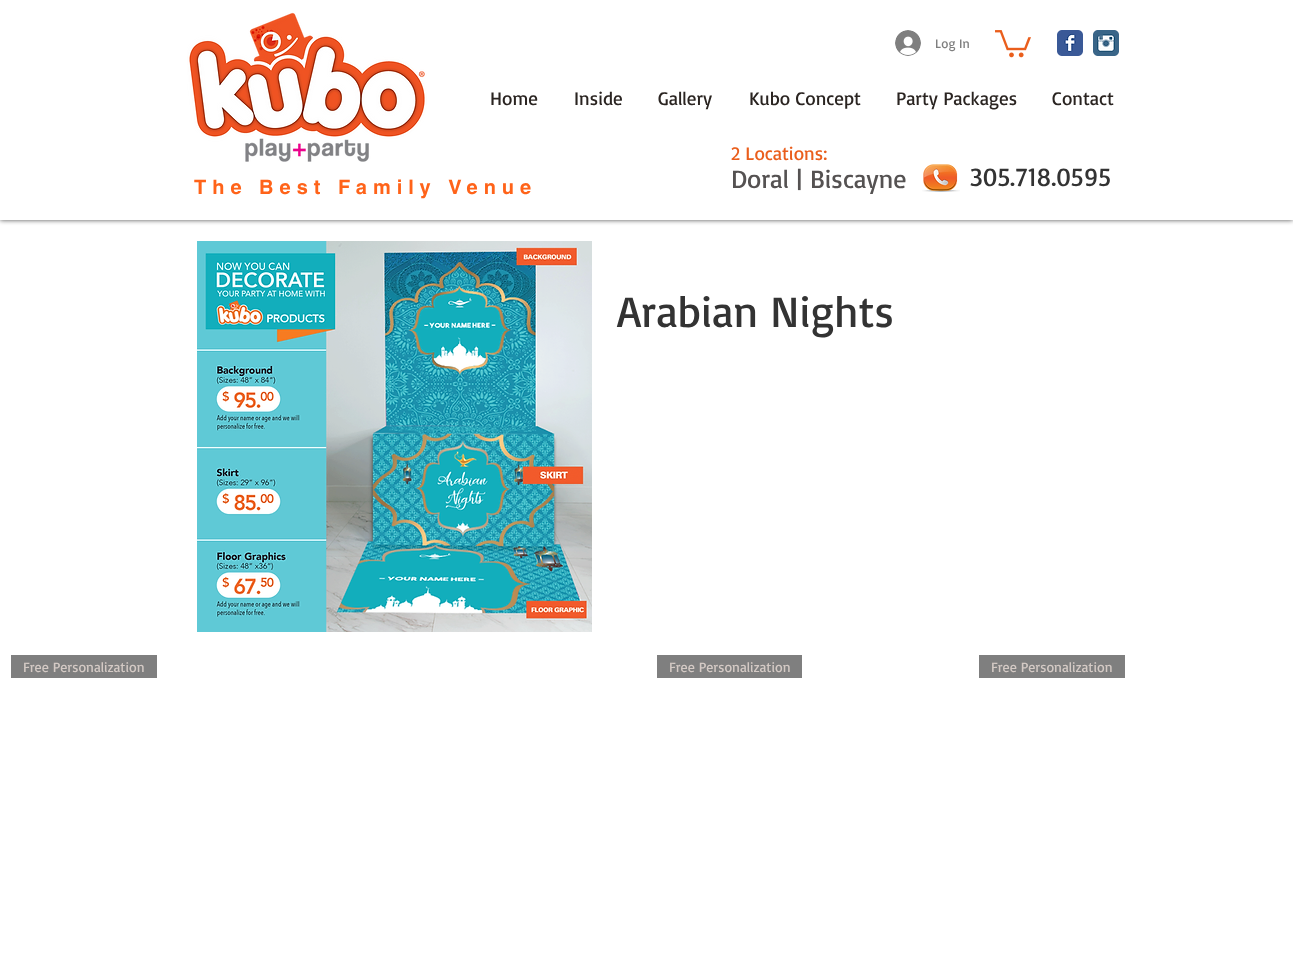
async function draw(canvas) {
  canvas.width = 1293
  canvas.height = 977
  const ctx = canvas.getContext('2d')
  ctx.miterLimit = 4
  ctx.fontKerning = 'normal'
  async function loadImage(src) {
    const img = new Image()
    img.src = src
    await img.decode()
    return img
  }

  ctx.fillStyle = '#fff'
  ctx.fillRect(0, 0, 1293, 977)
  ctx.fillStyle = '#000000b3'
  ctx.filter = 'blur(2.5px)'
  ctx.beginPath()
  ctx.rect(0, 0, 1293, 220)
  ctx.fill()
  ctx.filter = 'none'
  ctx.fillStyle = '#fff'
  ctx.fillRect(0, 0, 1293, 220)
  ctx.drawImage(await loadImage('image0.png'), 187, 12, 240, 150)
  ctx.drawImage(await loadImage('image1.png'), 895, 30, 26, 26)
  ctx.font = '13px Basic'
  ctx.fillStyle = '#7f7f7f'
  ctx.fillText('Log In', 935, 48)
  ctx.drawImage(await loadImage('image2.png'), 995, 30, 36, 28)
  ctx.drawImage(await loadImage('image3.png'), 1057, 30, 26, 26)
  ctx.drawImage(await loadImage('image4.png'), 1093, 30, 26, 26)
  ctx.font = '19px Basic'
  ctx.fillStyle = '#2a2421'
  ctx.fillText('Home', 490, 105)
  ctx.fillText('Inside', 574, 105)
  ctx.fillText('Gallery', 658, 105)
  ctx.fillText('Kubo Concept', 749, 105)
  ctx.fillText('Party Packages', 896, 105)
  ctx.fillText('Contact', 1052, 105)
  ctx.fillStyle = '#ea5e1c'
  ctx.fillText('2 Locations:', 731, 160)
  ctx.letterSpacing = '6px'
  ctx.font = 'bold 20px helvetica'
  ctx.fillStyle = '#ff6319'
  ctx.fillText('The Best Family Venue', 194, 194)
  ctx.letterSpacing = '0px'
  ctx.font = '26px Basic'
  ctx.fillStyle = '#555252'
  ctx.fillText('Doral | Biscayne', 731, 188)
  ctx.drawImage(await loadImage('image5.png'), 922, 164, 38, 28)
  ctx.fillStyle = '#333'
  ctx.fillText('305.718.0595', 970, 186)
  ctx.drawImage(await loadImage('image6.png'), 197, 241, 395, 391)
  ctx.font = '44px Basic'
  ctx.fillText('Arabian Nights', 617, 327)
  ctx.fillStyle = '#7f7f7f'
  ctx.fillRect(11, 655, 146, 23)
  ctx.font = '14px Basic'
  ctx.fillStyle = '#d4cac5'
  ctx.fillText('Free Personalization', 23, 672)
  ctx.fillStyle = '#7f7f7f'
  ctx.fillRect(657, 655, 145, 23)
  ctx.fillStyle = '#d4cac5'
  ctx.fillText('Free Personalization', 669, 672)
  ctx.fillStyle = '#7f7f7f'
  ctx.fillRect(979, 655, 146, 23)
  ctx.fillStyle = '#d4cac5'
  ctx.fillText('Free Personalization', 991, 672)
}

draw(document.querySelector('canvas'))
